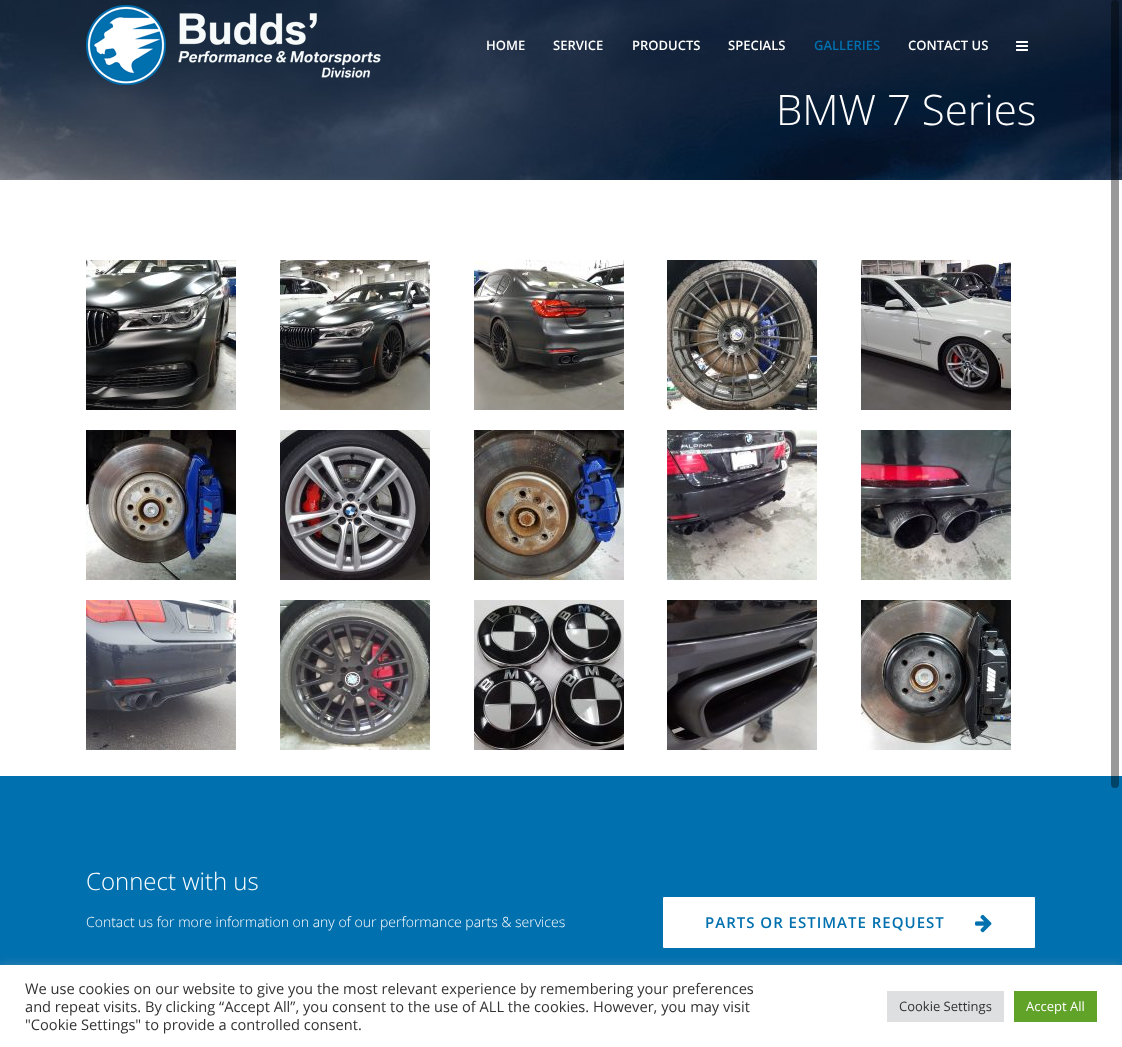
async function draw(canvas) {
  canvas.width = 1122
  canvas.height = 1047
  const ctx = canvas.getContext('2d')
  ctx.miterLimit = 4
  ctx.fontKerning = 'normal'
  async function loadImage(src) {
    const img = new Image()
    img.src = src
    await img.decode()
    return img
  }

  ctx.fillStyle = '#fff'
  ctx.fillRect(0, 0, 1122, 1047)
  ctx.drawImage(await loadImage('image2.png'), 0, 0, 1122, 180)
  ctx.drawImage(await loadImage('image0.png'), 86, 5, 295, 80)
  ctx.font = '600 13px Open Sans'
  ctx.fillText('HOME', 486, 50)
  ctx.fillText('SERVICE', 553, 50)
  ctx.fillText('PRODUCTS', 632, 50)
  ctx.fillText('SPECIALS', 728, 50)
  ctx.fillStyle = '#0070af'
  ctx.fillText('GALLERIES', 814, 50)
  ctx.fillStyle = '#fff'
  ctx.fillText('CONTACT US', 908, 50)
  ctx.drawImage(await loadImage('image1.png'), 1016, 41, 12, 10)
  ctx.font = '300 42px Open Sans'
  ctx.fillText('BMW 7 Series', 776, 125)
  ctx.drawImage(await loadImage('image3.png'), 86, 260, 150, 150)
  ctx.drawImage(await loadImage('image4.png'), 280, 260, 150, 150)
  ctx.drawImage(await loadImage('image5.png'), 474, 260, 150, 150)
  ctx.drawImage(await loadImage('image6.png'), 667, 260, 150, 150)
  ctx.drawImage(await loadImage('image7.png'), 861, 260, 150, 150)
  ctx.drawImage(await loadImage('image8.png'), 86, 430, 150, 150)
  ctx.drawImage(await loadImage('image9.png'), 280, 430, 150, 150)
  ctx.drawImage(await loadImage('image10.png'), 474, 430, 150, 150)
  ctx.drawImage(await loadImage('image11.png'), 667, 430, 150, 150)
  ctx.drawImage(await loadImage('image12.png'), 861, 430, 150, 150)
  ctx.drawImage(await loadImage('image13.png'), 86, 600, 150, 150)
  ctx.drawImage(await loadImage('image14.png'), 280, 600, 150, 150)
  ctx.drawImage(await loadImage('image15.png'), 474, 600, 150, 150)
  ctx.drawImage(await loadImage('image16.png'), 667, 600, 150, 150)
  ctx.drawImage(await loadImage('image17.png'), 861, 600, 150, 150)
  ctx.fillStyle = '#0070af'
  ctx.fillRect(0, 776, 1122, 189)
  ctx.font = '300 24px Open Sans'
  ctx.fillStyle = '#fff'
  ctx.fillText('Connect with us', 86, 890)
  ctx.font = '300 14px Open Sans'
  ctx.fillText('Contact us for more information on any of our performance parts & services', 86, 927)
  ctx.beginPath()
  ctx.roundRect(662.5, 896.5, 373, 52, 1.5)
  ctx.fill()
  ctx.strokeStyle = '#0070af'
  ctx.stroke()
  ctx.letterSpacing = '1px'
  ctx.font = '600 15px Open Sans'
  ctx.fillStyle = '#0070af'
  ctx.fillText('PARTS OR ESTIMATE REQUEST', 705, 928)
  ctx.drawImage(await loadImage('image18.png'), 975, 914, 17, 19)
  ctx.fillStyle = '#00000066'
  ctx.beginPath()
  ctx.roundRect(1111, 0, 8, 788, 4)
  ctx.fill()
  ctx.fillStyle = '#acabab4d'
  ctx.filter = 'blur(5px)'
  ctx.beginPath()
  ctx.rect(0, 964, 1122, 82)
  ctx.fill()
  ctx.filter = 'none'
  ctx.fillStyle = '#fff'
  ctx.fillRect(0, 965, 1122, 82)
  ctx.letterSpacing = '0px'
  ctx.font = '14.65px Open Sans'
  ctx.fillStyle = '#333'
  ctx.fillText('We use cookies on our website to give you the most relevant experience by remembering your preferences', 25, 994)
  ctx.fillText('and repeat visits. By clicking “Accept All”, you consent to the use of ALL the cookies. However, you may visit', 25, 1012)
  ctx.fillText('"Cookie Settings" to provide a controlled consent.', 25, 1030)
  ctx.fillStyle = '#dedfe0'
  ctx.fillRect(887, 991, 117, 31)
  ctx.font = '13px Open Sans'
  ctx.fillStyle = '#333'
  ctx.fillText('Cookie Settings', 899, 1011)
  ctx.fillStyle = '#61a229'
  ctx.fillRect(1014, 991, 83, 31)
  ctx.fillStyle = '#fff'
  ctx.fillText('Accept All', 1026, 1011)
}

draw(document.querySelector('canvas'))
